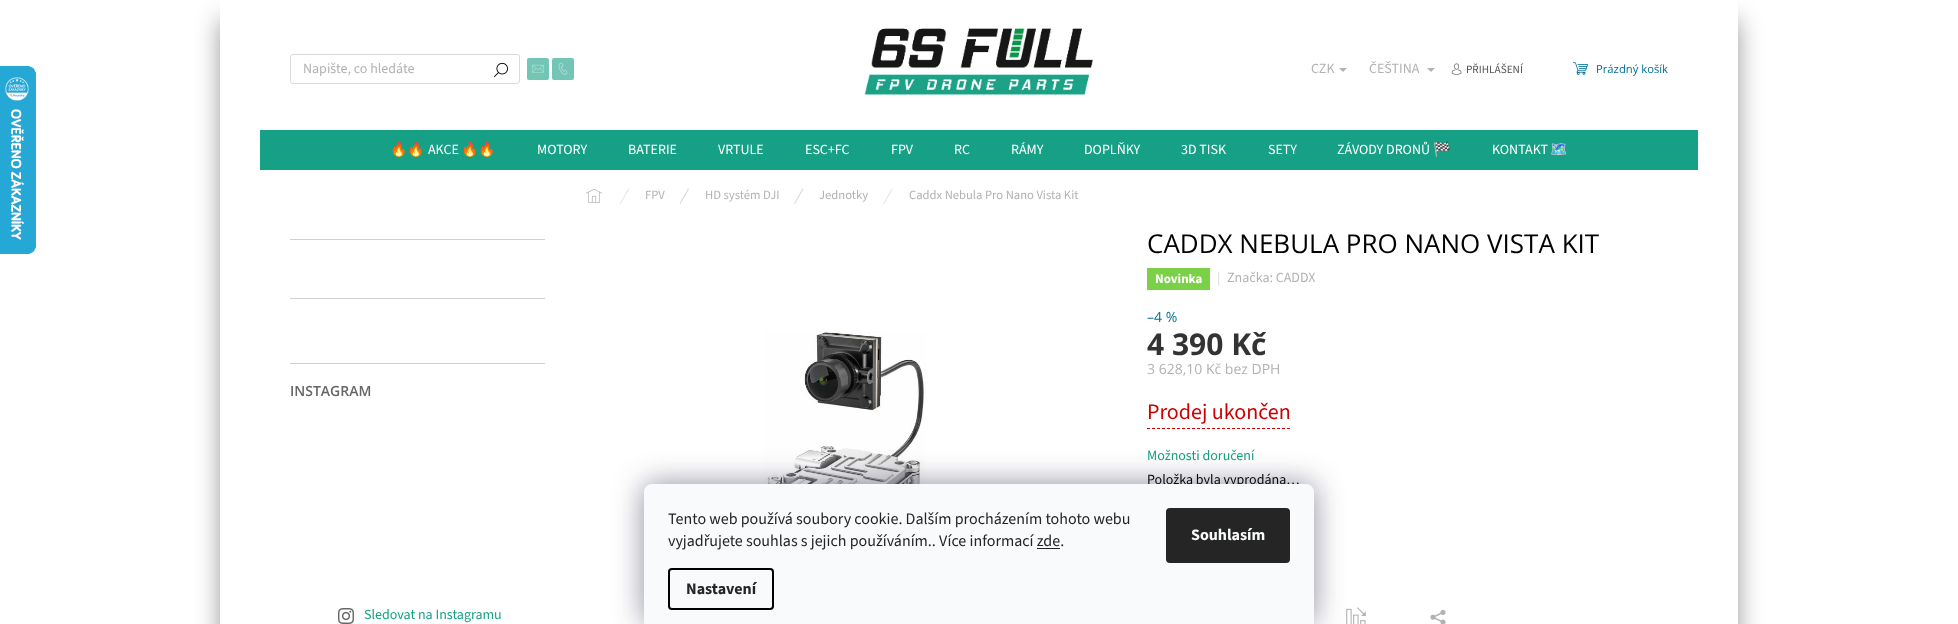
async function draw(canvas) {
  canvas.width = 1958
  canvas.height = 624
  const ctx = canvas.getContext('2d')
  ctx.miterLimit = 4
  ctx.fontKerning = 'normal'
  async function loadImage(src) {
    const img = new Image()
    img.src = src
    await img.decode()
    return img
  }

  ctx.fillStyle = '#fff'
  ctx.fillRect(0, 0, 1958, 624)
  ctx.drawImage(await loadImage('image0.png'), 0, 66, 36, 188)
  ctx.save()
  ctx.beginPath()
  ctx.moveTo(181, 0)
  ctx.lineTo(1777, 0)
  ctx.lineTo(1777, 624)
  ctx.lineTo(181, 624)
  ctx.closePath()
  ctx.moveTo(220, 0)
  ctx.lineTo(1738, 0)
  ctx.lineTo(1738, 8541)
  ctx.lineTo(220, 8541)
  ctx.closePath()
  ctx.clip('evenodd')
  ctx.fillStyle = '#00000066'
  ctx.filter = 'blur(12.5px)'
  ctx.beginPath()
  ctx.rect(220, 20, 1518, 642)
  ctx.fill()
  ctx.filter = 'none'
  ctx.restore()
  ctx.font = '14px "Source Sans 3"'
  ctx.fillStyle = '#b2b2b2'
  ctx.fillText('CZK', 1311, 73)
  ctx.beginPath()
  ctx.moveTo(1339, 68)
  ctx.lineTo(1347, 68)
  ctx.lineTo(1343, 72)
  ctx.closePath()
  ctx.fill()
  ctx.fillText('ČEŠTINA', 1369, 73)
  ctx.beginPath()
  ctx.moveTo(1427, 68)
  ctx.lineTo(1435, 68)
  ctx.lineTo(1431, 72)
  ctx.closePath()
  ctx.fill()
  ctx.drawImage(await loadImage('image1.png'), 1451, 63, 11, 12)
  ctx.font = '11.25px "Source Sans 3"'
  ctx.fillStyle = '#535353'
  ctx.fillText('PŘIHLÁŠENÍ', 1466, 73)
  ctx.fillStyle = '#16a085'
  ctx.fillRect(260, 130, 1438, 40)
  ctx.beginPath()
  ctx.roundRect(290.5, 54.5, 229, 29, 2.5)
  ctx.strokeStyle = '#dadada'
  ctx.stroke()
  ctx.font = '14px "Source Sans 3"'
  ctx.fillStyle = '#b2b2b2'
  ctx.fillText('Napište, co hledáte', 303, 73)
  ctx.drawImage(await loadImage('image2.png'), 494, 62, 14, 15)
  ctx.fillStyle = '#73c6b6'
  ctx.beginPath()
  ctx.roundRect(527, 58, 22, 22, 2)
  ctx.fill()
  ctx.drawImage(await loadImage('image3.png'), 532, 64, 12, 9)
  ctx.beginPath()
  ctx.roundRect(552, 58, 22, 22, 2)
  ctx.fill()
  ctx.drawImage(await loadImage('image4.png'), 558, 62, 10, 13)
  ctx.drawImage(await loadImage('image5.png'), 864, 28, 229, 68)
  ctx.drawImage(await loadImage('image6.png'), 1573, 61, 16, 14)
  ctx.font = '11.25px Open Sans'
  ctx.fillStyle = '#006f9b'
  ctx.fillText('Prázdný košík', 1596, 73)
  ctx.font = '14px Noto Color Emoji'
  ctx.fillStyle = '#fff'
  ctx.fillText('🔥🔥', 390, 154)
  ctx.font = '14px "Source Sans 3"'
  ctx.fillText('AKCE', 428, 154)
  ctx.font = '14px Noto Color Emoji'
  ctx.fillText('🔥🔥', 461, 154)
  ctx.font = '14px "Source Sans 3"'
  ctx.fillText('MOTORY', 537, 154)
  ctx.fillText('BATERIE', 628, 154)
  ctx.fillText('VRTULE', 718, 154)
  ctx.fillText('ESC+FC', 805, 154)
  ctx.fillText('FPV', 891, 154)
  ctx.fillText('RC', 954, 154)
  ctx.fillText('RÁMY', 1011, 154)
  ctx.fillText('DOPLŇKY', 1084, 154)
  ctx.fillText('3D TISK', 1181, 154)
  ctx.fillText('SETY', 1268, 154)
  ctx.fillText('ZÁVODY DRONŮ', 1337, 154)
  ctx.font = '14px Noto Color Emoji'
  ctx.fillText('🏁', 1433, 154)
  ctx.font = '14px "Source Sans 3"'
  ctx.fillText('KONTAKT', 1492, 154)
  ctx.font = '14px Noto Color Emoji'
  ctx.fillText('🗺️', 1550, 154)
  ctx.drawImage(await loadImage('image7.png'), 586, 189, 16, 14)
  ctx.fillStyle = '#dadada'
  ctx.beginPath()
  ctx.moveTo(628.5, 188.5)
  ctx.lineTo(629, 189)
  ctx.lineTo(620.5, 204)
  ctx.lineTo(620, 203.5)
  ctx.closePath()
  ctx.fill()
  ctx.font = '12.6px "Source Sans 3"'
  ctx.fillStyle = '#b2b2b2'
  ctx.fillText('FPV', 645, 199)
  ctx.fillStyle = '#dadada'
  ctx.beginPath()
  ctx.moveTo(688, 188.5)
  ctx.lineTo(689, 189)
  ctx.lineTo(680.5, 204)
  ctx.lineTo(679.5, 203.5)
  ctx.closePath()
  ctx.fill()
  ctx.fillStyle = '#b2b2b2'
  ctx.fillText('HD systém DJI', 705, 199)
  ctx.fillStyle = '#dadada'
  ctx.beginPath()
  ctx.moveTo(802.5, 188.5)
  ctx.lineTo(803.5, 189)
  ctx.lineTo(795, 204)
  ctx.lineTo(794, 203.5)
  ctx.closePath()
  ctx.fill()
  ctx.fillStyle = '#b2b2b2'
  ctx.fillText('Jednotky', 819, 199)
  ctx.fillStyle = '#dadada'
  ctx.beginPath()
  ctx.moveTo(892, 188.5)
  ctx.lineTo(892.5, 189)
  ctx.lineTo(884, 204)
  ctx.lineTo(883.5, 203.5)
  ctx.closePath()
  ctx.fill()
  ctx.fillStyle = '#b2b2b2'
  ctx.fillText('Caddx Nebula Pro Nano Vista Kit', 909, 199)
  ctx.fillStyle = '#d0d0d0'
  ctx.fillRect(290, 239, 255, 1)
  ctx.fillRect(290, 298, 255, 1)
  ctx.fillRect(290, 363, 255, 1)
  ctx.font = '600 14px Open Sans'
  ctx.fillStyle = '#666'
  ctx.fillText('INSTAGRAM', 290, 396)
  ctx.drawImage(await loadImage('image8.png'), 338, 608, 16, 16)
  ctx.font = '14px "Source Sans 3"'
  ctx.fillStyle = '#16a085'
  ctx.fillText('Sledovat na Instagramu', 364, 619)
  ctx.font = '26px Open Sans'
  ctx.fillStyle = '#000'
  ctx.fillText('CADDX NEBULA PRO NANO VISTA KIT', 1147, 253)
  ctx.fillStyle = '#7ad046'
  ctx.fillRect(1147, 268, 63, 22)
  ctx.font = 'bold 13px "Source Sans 3"'
  ctx.fillStyle = '#fff'
  ctx.fillText('Novinka', 1155, 283)
  ctx.font = '14px "Source Sans 3"'
  ctx.fillStyle = '#dadada'
  ctx.fillText('|', 1217, 282)
  ctx.fillStyle = '#b2b2b2'
  ctx.fillText('Značka: CADDX', 1227, 282)
  ctx.drawImage(await loadImage('image9.png'), 764, 331, 162, 153)
  ctx.font = '14px Open Sans'
  ctx.fillStyle = '#006f9b'
  ctx.fillText('–4 %', 1147, 322)
  ctx.font = 'bold 30px Open Sans'
  ctx.fillStyle = '#333'
  ctx.fillText('4 390 Kč', 1147, 355)
  ctx.font = '14px Open Sans'
  ctx.fillStyle = '#b2b2b2'
  ctx.fillText('3 628,10 Kč bez DPH', 1147, 374)
  ctx.font = '22px "Source Sans 3"'
  ctx.fillStyle = '#cb0000'
  ctx.fillText('Prodej ukončen', 1147, 419)
  ctx.beginPath()
  ctx.moveTo(1147, 428.5)
  ctx.lineTo(1290, 428.5)
  ctx.strokeStyle = '#cb0000'
  ctx.setLineDash([3, 2])
  ctx.stroke()
  ctx.font = '14px "Source Sans 3"'
  ctx.fillStyle = '#16a085'
  ctx.fillText('Možnosti doručení', 1147, 460)
  ctx.fillStyle = '#000'
  ctx.fillText('Položka byla vyprodána…', 1147, 484)
  ctx.drawImage(await loadImage('image10.png'), 1346, 607, 20, 17)
  ctx.drawImage(await loadImage('image11.png'), 1430, 609, 16, 15)
  ctx.fillStyle = '#1b193980'
  ctx.filter = 'blur(15px)'
  ctx.beginPath()
  ctx.roundRect(644, 484, 670, 140, 8)
  ctx.fill()
  ctx.filter = 'none'
  ctx.fillStyle = '#f8fafb'
  ctx.beginPath()
  ctx.roundRect(644, 484, 670, 140, [8, 8, 0, 0])
  ctx.fill()
  ctx.font = '16px "Source Sans 3"'
  ctx.fillStyle = '#252525'
  ctx.fillText('Tento web používá soubory cookie. Dalším procházením tohoto webu', 668, 524)
  ctx.fillText('vyjadřujete souhlas s jejich používáním.. Více informací zde.', 668, 546)
  ctx.fillRect(1037, 548, 23, 1)
  ctx.beginPath()
  ctx.roundRect(669, 569, 104, 40, 3)
  ctx.strokeStyle = '#000'
  ctx.lineWidth = 2
  ctx.setLineDash([])
  ctx.stroke()
  ctx.font = 'bold 16px "Source Sans 3"'
  ctx.fillText('Nastavení', 686, 594)
  ctx.beginPath()
  ctx.roundRect(1166, 508, 124, 55, 4)
  ctx.fill()
  ctx.fillStyle = '#f8fafb'
  ctx.fillText('Souhlasím', 1191, 540)
}

draw(document.querySelector('canvas'))
